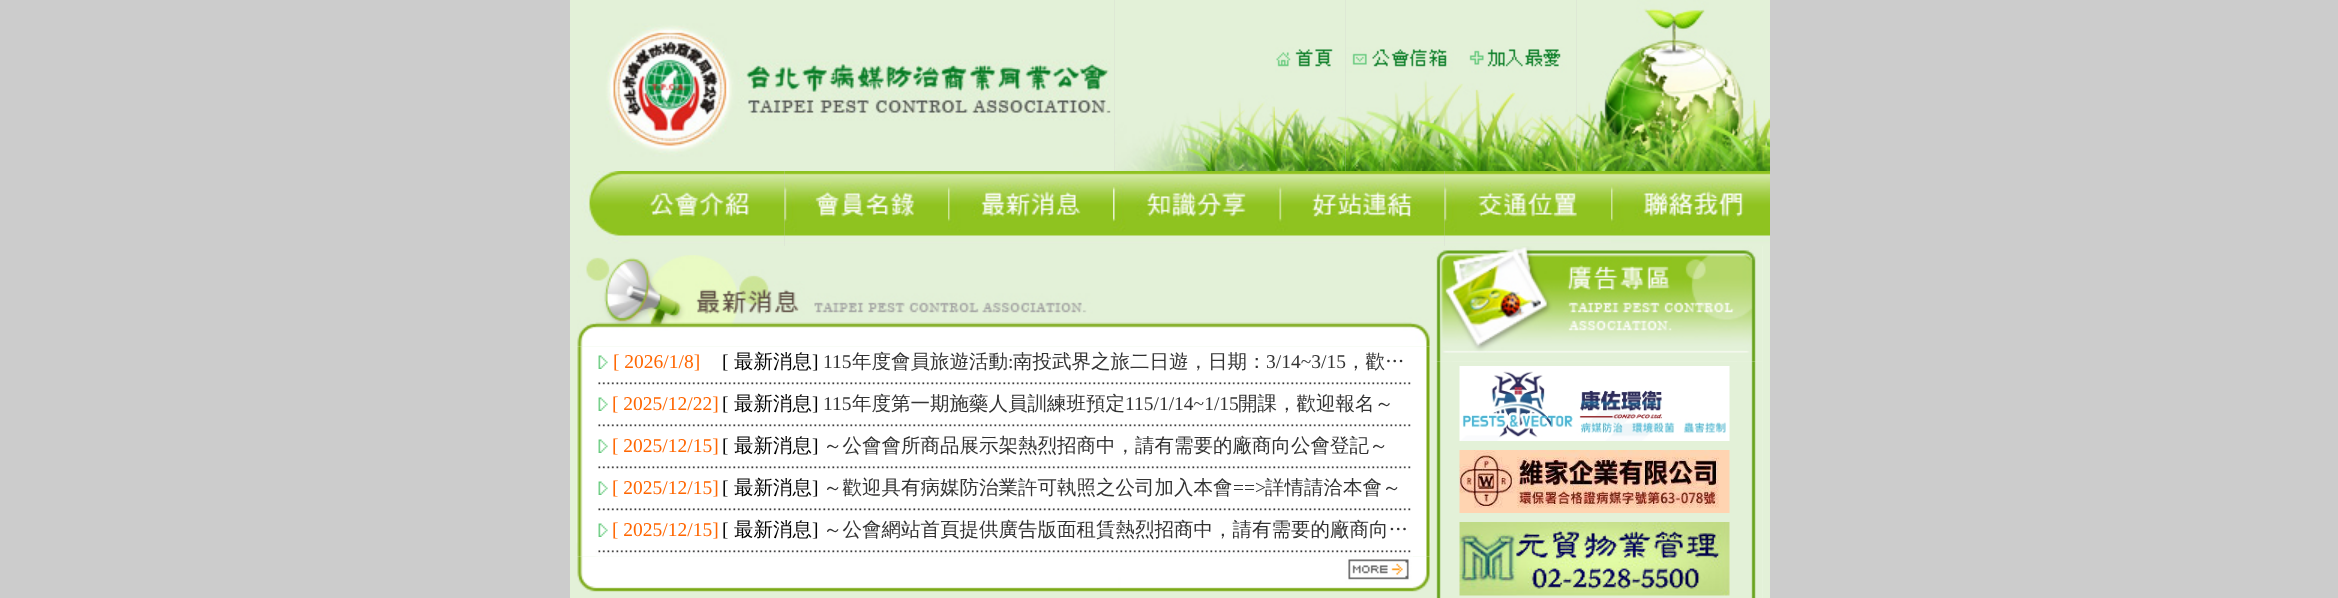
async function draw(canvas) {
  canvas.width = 2338
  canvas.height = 598
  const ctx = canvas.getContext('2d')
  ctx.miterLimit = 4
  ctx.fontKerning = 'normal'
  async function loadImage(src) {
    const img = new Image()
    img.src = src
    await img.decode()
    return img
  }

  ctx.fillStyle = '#ccc'
  ctx.fillRect(0, 0, 2338, 598)
  ctx.drawImage(await loadImage('image0.png'), 570, 0, 545, 171)
  ctx.drawImage(await loadImage('image1.png'), 1114, 0, 161, 171)
  ctx.drawImage(await loadImage('image2.png'), 1275, 0, 71, 171)
  ctx.drawImage(await loadImage('image3.png'), 1345, 0, 113, 171)
  ctx.drawImage(await loadImage('image4.png'), 1458, 0, 119, 171)
  ctx.drawImage(await loadImage('image5.png'), 1576, 0, 194, 171)
  ctx.drawImage(await loadImage('image6.png'), 570, 171, 215, 75)
  ctx.drawImage(await loadImage('image7.png'), 784, 171, 164, 75)
  ctx.drawImage(await loadImage('image8.png'), 948, 171, 165, 75)
  ctx.drawImage(await loadImage('image9.png'), 1113, 171, 162, 75)
  ctx.drawImage(await loadImage('image10.png'), 1275, 171, 170, 75)
  ctx.drawImage(await loadImage('image11.png'), 1444, 171, 167, 75)
  ctx.drawImage(await loadImage('image12.png'), 1611, 171, 159, 75)
  ctx.fillStyle = '#e3f1d8'
  ctx.fillRect(570, 246, 1200, 352)
  ctx.drawImage(await loadImage('image14.png'), 576, 346, 855, 211)
  ctx.drawImage(await loadImage('image13.png'), 577, 255, 853, 92)
  ctx.drawImage(await loadImage('image15.png'), 598, 355, 10, 14)
  ctx.font = '19.5px Liberation Serif'
  ctx.fillStyle = '#f60'
  ctx.fillText('[ 2026/1/8]', 613, 368)
  ctx.fillStyle = '#000'
  ctx.fillText('[', 722, 368)
  ctx.font = '500 19.5px WenQuanYi Zen Hei'
  ctx.fillText('最新消息', 734, 368)
  ctx.font = '19.5px Liberation Serif'
  ctx.fillText(']', 812, 368)
  ctx.fillStyle = '#333'
  ctx.fillText('115', 823, 368)
  ctx.font = '500 19.5px WenQuanYi Zen Hei'
  ctx.fillText('年度會員旅遊活動', 852, 368)
  ctx.font = '19.5px Liberation Serif'
  ctx.fillText(':', 1008, 368)
  ctx.font = '500 19.5px WenQuanYi Zen Hei'
  ctx.fillText('南投武界之旅二日遊，日期：', 1013, 368)
  ctx.font = '19.5px Liberation Serif'
  ctx.fillText('3/14~3/15', 1266, 368)
  ctx.font = '500 19.5px WenQuanYi Zen Hei'
  ctx.fillText('，歡…', 1346, 368)
  ctx.drawImage(await loadImage('image16.png'), 598, 382, 813, 3)
  ctx.drawImage(await loadImage('image15.png'), 598, 397, 10, 14)
  ctx.font = '19.5px Liberation Serif'
  ctx.fillStyle = '#f60'
  ctx.fillText('[ 2025/12/22]', 612, 410)
  ctx.fillStyle = '#000'
  ctx.fillText('[', 722, 410)
  ctx.font = '500 19.5px WenQuanYi Zen Hei'
  ctx.fillText('最新消息', 734, 410)
  ctx.font = '19.5px Liberation Serif'
  ctx.fillText(']', 812, 410)
  ctx.fillStyle = '#333'
  ctx.fillText('115', 823, 410)
  ctx.font = '500 19.5px WenQuanYi Zen Hei'
  ctx.fillText('年度第一期施藥人員訓練班預定', 852, 410)
  ctx.font = '19.5px Liberation Serif'
  ctx.fillText('115/1/14~1/15', 1125, 410)
  ctx.font = '500 19.5px WenQuanYi Zen Hei'
  ctx.fillText('開課，歡迎報名～', 1238, 410)
  ctx.drawImage(await loadImage('image16.png'), 598, 424, 813, 3)
  ctx.drawImage(await loadImage('image15.png'), 598, 439, 10, 14)
  ctx.font = '19.5px Liberation Serif'
  ctx.fillStyle = '#f60'
  ctx.fillText('[ 2025/12/15]', 612, 452)
  ctx.fillStyle = '#000'
  ctx.fillText('[', 722, 452)
  ctx.font = '500 19.5px WenQuanYi Zen Hei'
  ctx.fillText('最新消息', 734, 452)
  ctx.font = '19.5px Liberation Serif'
  ctx.fillText(']', 812, 452)
  ctx.font = '500 19.5px WenQuanYi Zen Hei'
  ctx.fillStyle = '#333'
  ctx.fillText('～公會會所商品展示架熱烈招商中，請有需要的廠商向公會登記～', 823, 452)
  ctx.drawImage(await loadImage('image16.png'), 598, 466, 813, 3)
  ctx.drawImage(await loadImage('image15.png'), 598, 481, 10, 14)
  ctx.font = '19.5px Liberation Serif'
  ctx.fillStyle = '#f60'
  ctx.fillText('[ 2025/12/15]', 612, 494)
  ctx.fillStyle = '#000'
  ctx.fillText('[', 722, 494)
  ctx.font = '500 19.5px WenQuanYi Zen Hei'
  ctx.fillText('最新消息', 734, 494)
  ctx.font = '19.5px Liberation Serif'
  ctx.fillText(']', 812, 494)
  ctx.font = '500 19.5px WenQuanYi Zen Hei'
  ctx.fillStyle = '#333'
  ctx.fillText('～歡迎具有病媒防治業許可執照之公司加入本會', 823, 494)
  ctx.font = '19.5px Liberation Serif'
  ctx.fillText('==>', 1233, 494)
  ctx.font = '500 19.5px WenQuanYi Zen Hei'
  ctx.fillText('詳情請洽本會～', 1265, 494)
  ctx.drawImage(await loadImage('image16.png'), 598, 508, 813, 3)
  ctx.drawImage(await loadImage('image15.png'), 598, 523, 10, 14)
  ctx.font = '19.5px Liberation Serif'
  ctx.fillStyle = '#f60'
  ctx.fillText('[ 2025/12/15]', 612, 536)
  ctx.fillStyle = '#000'
  ctx.fillText('[', 722, 536)
  ctx.font = '500 19.5px WenQuanYi Zen Hei'
  ctx.fillText('最新消息', 734, 536)
  ctx.font = '19.5px Liberation Serif'
  ctx.fillText(']', 812, 536)
  ctx.font = '500 19.5px WenQuanYi Zen Hei'
  ctx.fillStyle = '#333'
  ctx.fillText('～公會網站首頁提供廣告版面租賃熱烈招商中，請有需要的廠商向…', 823, 536)
  ctx.drawImage(await loadImage('image17.png'), 595, 550, 818, 7)
  ctx.drawImage(await loadImage('image18.png'), 577, 556, 853, 36)
  ctx.fillStyle = '#e9f4e0'
  ctx.fillRect(1431, 246, 332, 352)
  ctx.drawImage(await loadImage('image20.png'), 1431, 361, 21, 237)
  ctx.drawImage(await loadImage('image24.png'), 1737, 361, 26, 237)
  ctx.drawImage(await loadImage('image19.png'), 1431, 246, 332, 116)
  ctx.fillStyle = '#e3f1d8'
  ctx.fillRect(1452, 362, 285, 236)
  ctx.drawImage(await loadImage('image21.png'), 1459, 366, 271, 75)
  ctx.drawImage(await loadImage('image22.png'), 1459, 450, 271, 63)
  ctx.drawImage(await loadImage('image23.png'), 1459, 522, 271, 74)
}

draw(document.querySelector('canvas'))
